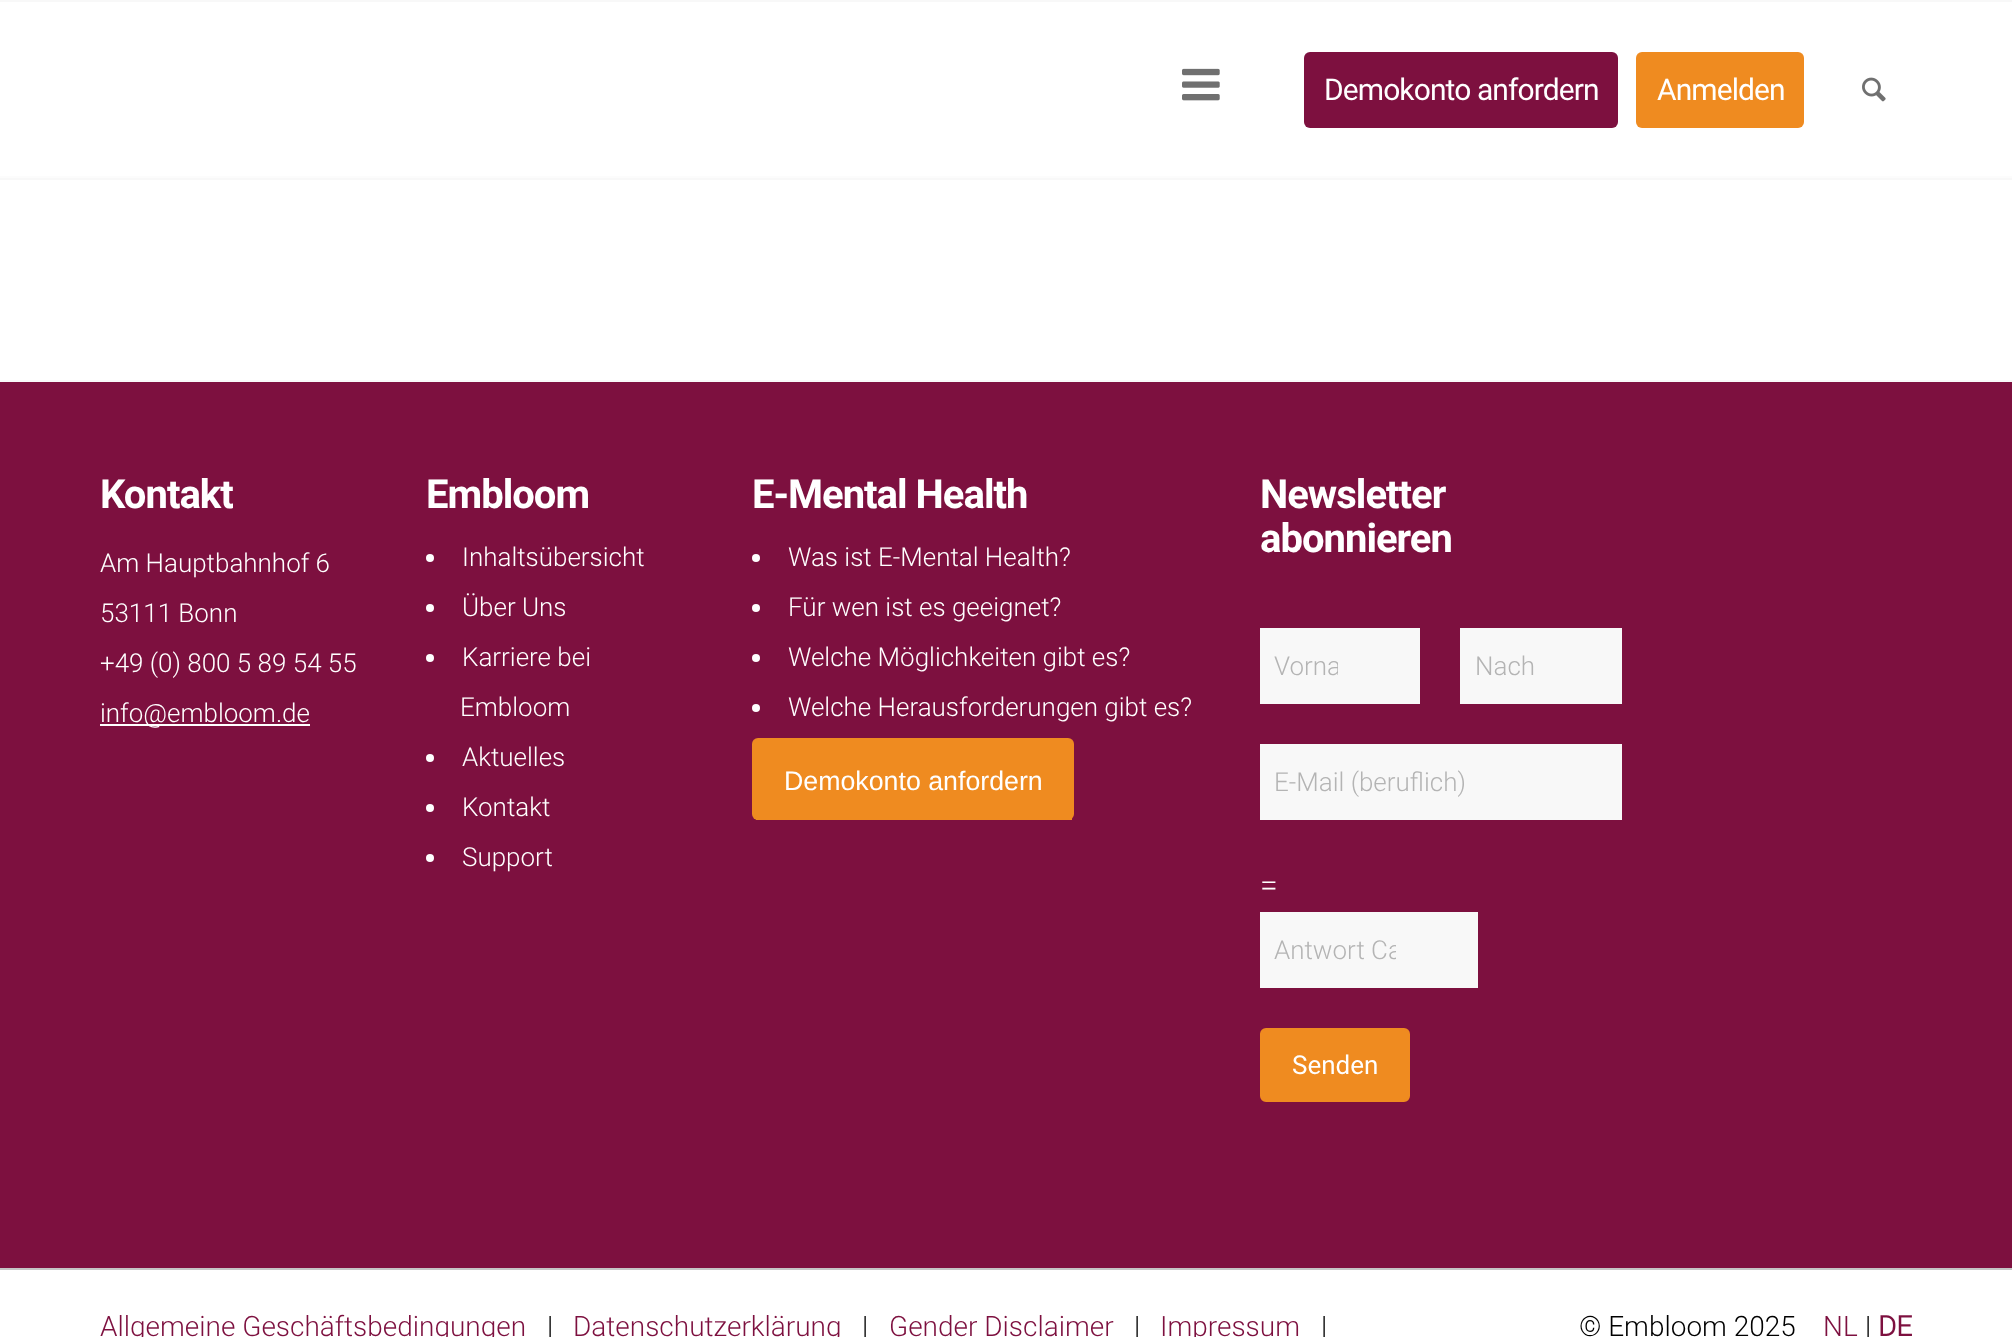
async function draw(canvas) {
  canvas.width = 2012
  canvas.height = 1337
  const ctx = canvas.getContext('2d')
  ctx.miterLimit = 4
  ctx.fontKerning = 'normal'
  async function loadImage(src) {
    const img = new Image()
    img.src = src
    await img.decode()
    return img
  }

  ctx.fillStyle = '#fff'
  ctx.fillRect(0, 0, 2012, 1337)
  ctx.fillStyle = '#f8f8f8'
  ctx.fillRect(0, 0, 2012, 2)
  ctx.fillRect(0, 178, 2012, 2)
  ctx.drawImage(await loadImage('image0.png'), 1182, 68, 38, 33)
  ctx.fillStyle = '#7d103f'
  ctx.beginPath()
  ctx.roundRect(1304, 52, 314, 76, 6)
  ctx.fill()
  ctx.letterSpacing = '-0.9px'
  ctx.font = '30px Roboto'
  ctx.fillStyle = '#fff'
  ctx.fillText('Demokonto anfordern', 1324, 100)
  ctx.fillStyle = '#ef8b20'
  ctx.beginPath()
  ctx.roundRect(1636, 52, 168, 76, 6)
  ctx.fill()
  ctx.fillStyle = '#fff'
  ctx.fillText('Anmelden', 1657, 100)
  ctx.drawImage(await loadImage('image1.png'), 1862, 77, 24, 25)
  ctx.fillStyle = '#fcfcfc'
  ctx.fillRect(0, 176, 2012, 2)
  ctx.fillStyle = '#7d103f'
  ctx.fillRect(0, 382, 2012, 886)
  ctx.fillStyle = '#f8f8f8'
  ctx.fillRect(0, 380, 2012, 2)
  ctx.letterSpacing = '-1px'
  ctx.font = 'bold 40px Roboto'
  ctx.fillStyle = '#fff'
  ctx.fillText('Kontakt', 100, 508)
  ctx.letterSpacing = '0px'
  ctx.font = '300 26px Roboto'
  ctx.fillText('Am Hauptbahnhof 6', 100, 572)
  ctx.fillText('53111 Bonn', 100, 622)
  ctx.fillText('+49 (0) 800 5 89 54 55', 100, 672)
  ctx.fillRect(100, 724, 210, 2)
  ctx.fillText('info@embloom.de', 100, 722)
  ctx.letterSpacing = '-1px'
  ctx.font = 'bold 40px Roboto'
  ctx.fillText('Embloom', 426, 508)
  ctx.beginPath()
  ctx.arc(430, 558, 4, 0, 2 * Math.PI)
  ctx.fill()
  ctx.letterSpacing = '0px'
  ctx.font = '300 26px Roboto'
  ctx.fillText('Inhaltsübersicht', 462, 566)
  ctx.beginPath()
  ctx.arc(430, 608, 4, 0, 2 * Math.PI)
  ctx.fill()
  ctx.fillText('Über Uns', 462, 616)
  ctx.beginPath()
  ctx.arc(430, 658, 4, 0, 2 * Math.PI)
  ctx.fill()
  ctx.fillText('Karriere bei', 462, 666)
  ctx.fillText('Embloom', 460, 716)
  ctx.beginPath()
  ctx.arc(430, 758, 4, 0, 2 * Math.PI)
  ctx.fill()
  ctx.fillText('Aktuelles', 462, 766)
  ctx.beginPath()
  ctx.arc(430, 808, 4, 0, 2 * Math.PI)
  ctx.fill()
  ctx.fillText('Kontakt', 462, 816)
  ctx.beginPath()
  ctx.arc(430, 858, 4, 0, 2 * Math.PI)
  ctx.fill()
  ctx.fillText('Support', 462, 866)
  ctx.letterSpacing = '-1px'
  ctx.font = 'bold 40px Roboto'
  ctx.fillText('E-Mental Health', 752, 508)
  ctx.beginPath()
  ctx.arc(756, 558, 4, 0, 2 * Math.PI)
  ctx.fill()
  ctx.letterSpacing = '0px'
  ctx.font = '300 26px Roboto'
  ctx.fillText('Was ist E-Mental Health?', 788, 566)
  ctx.beginPath()
  ctx.arc(756, 608, 4, 0, 2 * Math.PI)
  ctx.fill()
  ctx.fillText('Für wen ist es geeignet?', 788, 616)
  ctx.beginPath()
  ctx.arc(756, 658, 4, 0, 2 * Math.PI)
  ctx.fill()
  ctx.fillText('Welche Möglichkeiten gibt es?', 788, 666)
  ctx.beginPath()
  ctx.arc(756, 708, 4, 0, 2 * Math.PI)
  ctx.fill()
  ctx.fillText('Welche Herausforderungen gibt es?', 788, 716)
  ctx.fillStyle = '#ef8b20'
  ctx.beginPath()
  ctx.roundRect(752, 738, 322, 82, 6)
  ctx.fill()
  ctx.fillRect(756, 818, 316, 2)
  ctx.font = '26.75px Liberation Sans'
  ctx.fillStyle = '#fff'
  ctx.fillText('Demokonto anfordern', 784, 790)
  ctx.letterSpacing = '-1px'
  ctx.font = 'bold 40px Roboto'
  ctx.fillText('Newsletter', 1260, 508)
  ctx.fillText('abonnieren', 1260, 552)
  ctx.fillStyle = '#f8f8f8'
  ctx.fillRect(1260, 628, 160, 76)
  ctx.save()
  ctx.beginPath()
  ctx.rect(1274, 652, 64, 30)
  ctx.clip()
  ctx.letterSpacing = '0px'
  ctx.font = '300 26px Roboto'
  ctx.fillStyle = '#b4b4b4'
  ctx.fillText('Vorna', 1274, 675)
  ctx.restore()
  ctx.fillRect(1460, 628, 162, 76)
  ctx.letterSpacing = '0px'
  ctx.font = '300 26px Roboto'
  ctx.fillStyle = '#b4b4b4'
  ctx.fillText('Nach', 1475, 675)
  ctx.fillStyle = '#f8f8f8'
  ctx.fillRect(1260, 744, 362, 76)
  ctx.fillStyle = '#b4b4b4'
  ctx.fillText('E-Mail (beruflich)', 1274, 791)
  ctx.font = '300 32px Roboto'
  ctx.fillStyle = '#fff'
  ctx.fillText('=', 1260, 896)
  ctx.fillStyle = '#f8f8f8'
  ctx.fillRect(1260, 912, 218, 76)
  ctx.save()
  ctx.beginPath()
  ctx.rect(1274, 936, 122, 30)
  ctx.clip()
  ctx.font = '300 26px Roboto'
  ctx.fillStyle = '#b4b4b4'
  ctx.fillText('Antwort Ca', 1274, 959)
  ctx.restore()
  ctx.fillStyle = '#ef8b20'
  ctx.beginPath()
  ctx.roundRect(1261, 1029, 148, 72, 5)
  ctx.fill()
  ctx.strokeStyle = '#ef8b20'
  ctx.lineWidth = 2
  ctx.stroke()
  ctx.font = '26px Roboto'
  ctx.fillStyle = '#fff'
  ctx.fillText('Senden', 1292, 1074)
  ctx.fillStyle = '#c5c5c5'
  ctx.fillRect(0, 1268, 2012, 2)
  ctx.font = '300 28px Roboto'
  ctx.fillStyle = '#7d103f'
  ctx.fillText('Allgemeine Geschäftsbedingungen', 100, 1336)
  ctx.fillStyle = '#000'
  ctx.fillText('|', 547, 1336)
  ctx.fillStyle = '#7d103f'
  ctx.fillText('Datenschutzerklärung', 573, 1336)
  ctx.fillStyle = '#000'
  ctx.fillText('|', 862, 1336)
  ctx.fillStyle = '#7d103f'
  ctx.fillText('Gender Disclaimer', 889, 1336)
  ctx.fillStyle = '#000'
  ctx.fillText('|', 1134, 1336)
  ctx.fillStyle = '#7d103f'
  ctx.fillText('Impressum', 1160, 1336)
  ctx.fillStyle = '#000'
  ctx.fillText('|', 1321, 1336)
  ctx.fillText('© Embloom 2025', 1579, 1336)
  ctx.fillStyle = '#7d103f'
  ctx.fillText('NL', 1823, 1336)
  ctx.fillStyle = '#000'
  ctx.fillText('|', 1865, 1336)
  ctx.font = 'bold 28px "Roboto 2"'
  ctx.fillStyle = '#7d103f'
  ctx.fillText('DE', 1878, 1336)
}

draw(document.querySelector('canvas'))
